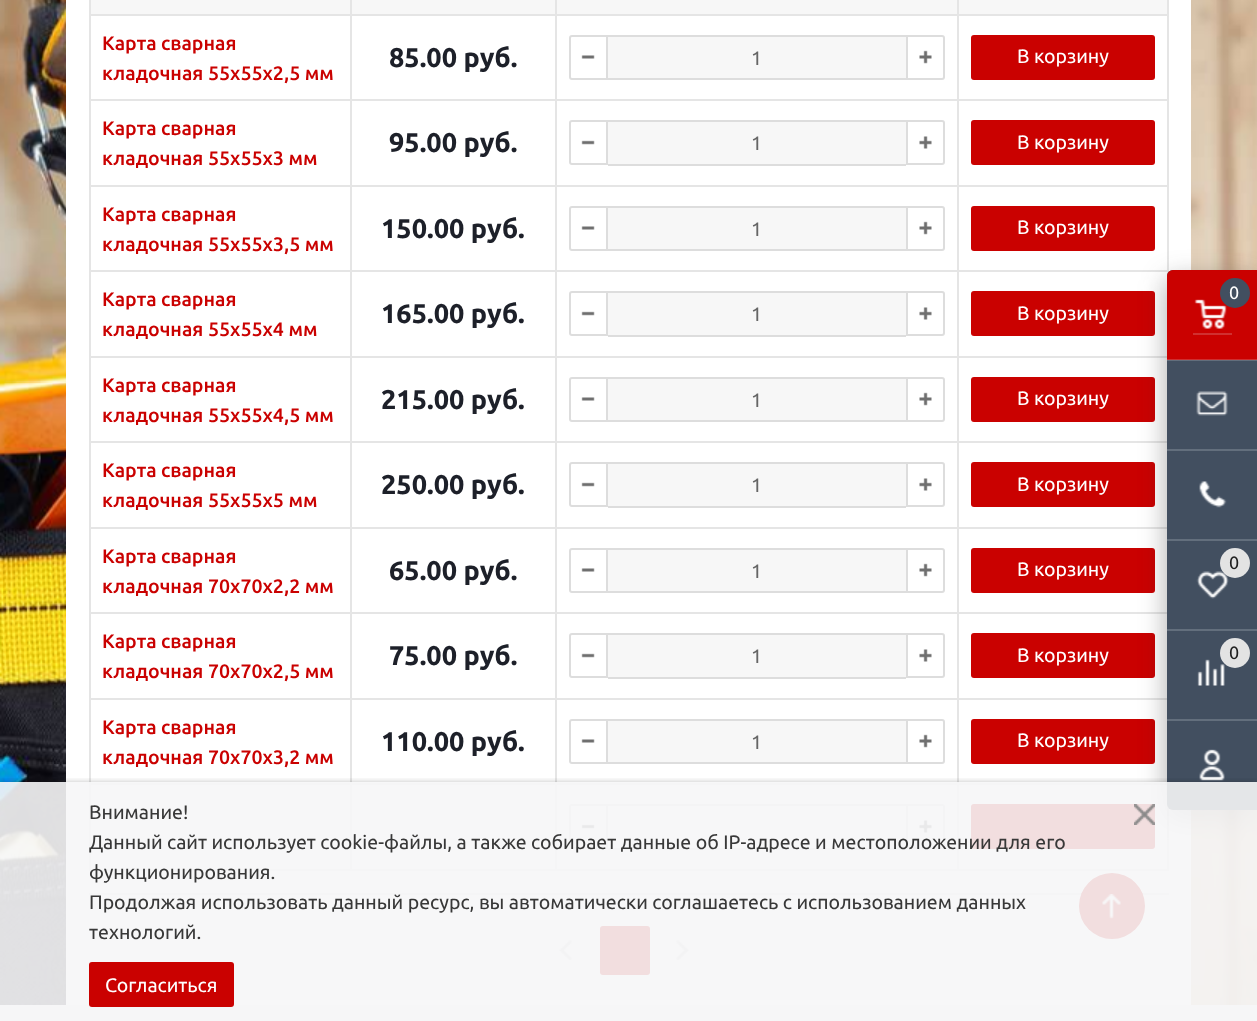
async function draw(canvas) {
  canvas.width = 1257
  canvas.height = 1021
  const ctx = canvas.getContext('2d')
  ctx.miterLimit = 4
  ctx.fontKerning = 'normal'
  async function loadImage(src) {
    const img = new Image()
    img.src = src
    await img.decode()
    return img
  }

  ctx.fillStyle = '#fff'
  ctx.fillRect(0, 0, 1257, 1021)
  ctx.drawImage(await loadImage('image0.png'), 0, 0, 1257, 1005)
  ctx.fillRect(66, 0, 1125, 1005)
  ctx.fillStyle = '#f7f7f7'
  ctx.fillRect(91, 0, 259, 14)
  ctx.fillRect(352, 0, 203, 14)
  ctx.fillStyle = '#e5e5e5'
  ctx.fillRect(957, 14, 212, 2)
  ctx.fillRect(957, 99, 212, 2)
  ctx.fillRect(957, 185, 212, 2)
  ctx.fillRect(957, 270, 212, 2)
  ctx.fillRect(957, 356, 212, 2)
  ctx.fillRect(957, 441, 212, 2)
  ctx.fillRect(957, 527, 212, 2)
  ctx.fillRect(957, 612, 212, 2)
  ctx.fillRect(957, 698, 212, 2)
  ctx.fillRect(957, 783, 212, 2)
  ctx.fillRect(1167, 804, 2, 66)
  ctx.fillRect(957, 869, 212, 2)
  ctx.fillRect(957, 783, 2, 87)
  ctx.fillRect(555, 783, 404, 2)
  ctx.fillRect(957, 698, 2, 87)
  ctx.fillRect(555, 698, 404, 2)
  ctx.fillRect(957, 612, 2, 87)
  ctx.fillRect(555, 612, 404, 2)
  ctx.fillRect(957, 527, 2, 87)
  ctx.fillRect(555, 527, 404, 2)
  ctx.fillRect(957, 441, 2, 87)
  ctx.fillRect(555, 441, 404, 2)
  ctx.fillRect(957, 356, 2, 87)
  ctx.fillRect(555, 356, 404, 2)
  ctx.fillRect(957, 270, 2, 87)
  ctx.fillRect(555, 270, 404, 2)
  ctx.fillRect(957, 185, 2, 87)
  ctx.fillRect(555, 185, 404, 2)
  ctx.fillRect(957, 99, 2, 87)
  ctx.fillRect(555, 99, 404, 2)
  ctx.fillRect(957, 14, 2, 87)
  ctx.fillRect(555, 14, 404, 2)
  ctx.fillRect(555, 869, 404, 2)
  ctx.fillRect(555, 783, 2, 87)
  ctx.fillRect(350, 783, 207, 2)
  ctx.fillRect(555, 698, 2, 87)
  ctx.fillRect(350, 698, 207, 2)
  ctx.fillRect(555, 612, 2, 87)
  ctx.fillRect(350, 612, 207, 2)
  ctx.fillRect(555, 527, 2, 87)
  ctx.fillRect(350, 527, 207, 2)
  ctx.fillRect(555, 441, 2, 87)
  ctx.fillRect(350, 441, 207, 2)
  ctx.fillRect(555, 356, 2, 87)
  ctx.fillRect(350, 356, 207, 2)
  ctx.fillRect(555, 270, 2, 87)
  ctx.fillRect(350, 270, 207, 2)
  ctx.fillRect(555, 185, 2, 87)
  ctx.fillRect(350, 185, 207, 2)
  ctx.fillRect(555, 99, 2, 87)
  ctx.fillRect(350, 99, 207, 2)
  ctx.fillRect(555, 14, 2, 87)
  ctx.fillRect(350, 14, 207, 2)
  ctx.fillRect(350, 869, 207, 2)
  ctx.fillRect(350, 783, 2, 87)
  ctx.fillRect(89, 783, 262, 2)
  ctx.fillRect(350, 698, 2, 87)
  ctx.fillRect(89, 698, 262, 2)
  ctx.fillRect(350, 612, 2, 87)
  ctx.fillRect(89, 612, 262, 2)
  ctx.fillRect(350, 527, 2, 87)
  ctx.fillRect(89, 527, 262, 2)
  ctx.fillRect(350, 441, 2, 87)
  ctx.fillRect(89, 441, 262, 2)
  ctx.fillRect(350, 356, 2, 87)
  ctx.fillRect(89, 356, 262, 2)
  ctx.fillRect(350, 270, 2, 87)
  ctx.fillRect(89, 270, 262, 2)
  ctx.fillRect(350, 185, 2, 87)
  ctx.fillRect(89, 185, 262, 2)
  ctx.fillRect(350, 99, 2, 87)
  ctx.fillRect(89, 99, 262, 2)
  ctx.fillRect(350, 14, 2, 87)
  ctx.fillRect(89, 14, 262, 2)
  ctx.fillRect(350, 0, 2, 15)
  ctx.fillStyle = '#f7f7f7'
  ctx.fillRect(557, 0, 400, 14)
  ctx.fillStyle = '#e5e5e5'
  ctx.fillRect(555, 0, 2, 15)
  ctx.fillStyle = '#f7f7f7'
  ctx.fillRect(959, 0, 208, 14)
  ctx.fillStyle = '#e5e5e5'
  ctx.fillRect(957, 0, 2, 15)
  ctx.fillRect(89, 869, 262, 2)
  ctx.fillRect(89, 783, 2, 87)
  ctx.fillRect(89, 698, 2, 87)
  ctx.fillRect(89, 612, 2, 87)
  ctx.fillRect(89, 527, 2, 87)
  ctx.fillRect(89, 441, 2, 87)
  ctx.fillRect(89, 356, 2, 87)
  ctx.fillRect(89, 270, 2, 87)
  ctx.fillRect(89, 185, 2, 87)
  ctx.fillRect(89, 99, 2, 87)
  ctx.fillRect(89, 0, 2, 101)
  ctx.font = '500 19.5px Ubuntu'
  ctx.fillStyle = '#ca0100'
  ctx.fillText('Карта сварная', 102, 50)
  ctx.fillText('кладочная 55х55х2,5 мм', 102, 80)
  ctx.font = 'bold 27px Ubuntu'
  ctx.fillStyle = '#1d2029'
  ctx.fillText('85.00 руб.', 389, 67)
  ctx.beginPath()
  ctx.roundRect(570, 36, 37, 43, [2, 0, 0, 2])
  ctx.strokeStyle = '#ddd'
  ctx.lineWidth = 2
  ctx.stroke()
  ctx.drawImage(await loadImage('image1.png'), 581, 55, 14, 4)
  ctx.fillStyle = '#f7f7f7'
  ctx.fillRect(608, 37, 298, 41)
  ctx.fillStyle = '#ddd'
  ctx.fillRect(608, 35, 298, 2)
  ctx.fillRect(608, 78, 298, 2)
  ctx.font = '19.5px Ubuntu'
  ctx.fillStyle = '#666'
  ctx.fillText('1', 751, 65)
  ctx.beginPath()
  ctx.roundRect(907, 36, 37, 43, [0, 2, 2, 0])
  ctx.stroke()
  ctx.drawImage(await loadImage('image2.png'), 919, 50, 13, 14)
  ctx.fillStyle = '#e5e5e5'
  ctx.fillRect(1167, 270, 2, 6)
  ctx.fillRect(1167, 185, 2, 87)
  ctx.fillRect(1167, 99, 2, 87)
  ctx.fillRect(1167, 0, 2, 101)
  ctx.fillStyle = '#ca0100'
  ctx.beginPath()
  ctx.roundRect(971, 35, 184, 45, 3)
  ctx.fill()
  ctx.fillStyle = '#fff'
  ctx.fillText('В корзину', 1017, 63)
  ctx.font = '500 19.5px Ubuntu'
  ctx.fillStyle = '#ca0100'
  ctx.fillText('Карта сварная', 102, 135)
  ctx.fillText('кладочная 55х55х3 мм', 102, 165)
  ctx.font = 'bold 27px Ubuntu'
  ctx.fillStyle = '#1d2029'
  ctx.fillText('95.00 руб.', 389, 152)
  ctx.beginPath()
  ctx.roundRect(570, 121, 37, 43, [2, 0, 0, 2])
  ctx.stroke()
  ctx.drawImage(await loadImage('image3.png'), 581, 140, 14, 5)
  ctx.fillStyle = '#f7f7f7'
  ctx.fillRect(608, 122, 298, 42)
  ctx.fillStyle = '#ddd'
  ctx.fillRect(608, 120, 298, 2)
  ctx.fillRect(608, 164, 298, 2)
  ctx.font = '19.5px Ubuntu'
  ctx.fillStyle = '#666'
  ctx.fillText('1', 751, 150)
  ctx.beginPath()
  ctx.roundRect(907, 121, 37, 43, [0, 2, 2, 0])
  ctx.stroke()
  ctx.drawImage(await loadImage('image4.png'), 919, 136, 13, 13)
  ctx.fillStyle = '#ca0100'
  ctx.beginPath()
  ctx.roundRect(971, 120, 184, 45, 3)
  ctx.fill()
  ctx.fillStyle = '#fff'
  ctx.fillText('В корзину', 1017, 149)
  ctx.font = '500 19.5px Ubuntu'
  ctx.fillStyle = '#ca0100'
  ctx.fillText('Карта сварная', 102, 221)
  ctx.fillText('кладочная 55х55х3,5 мм', 102, 251)
  ctx.font = 'bold 27px Ubuntu'
  ctx.fillStyle = '#1d2029'
  ctx.fillText('150.00 руб.', 381, 238)
  ctx.beginPath()
  ctx.roundRect(570, 207, 37, 43, [2, 0, 0, 2])
  ctx.stroke()
  ctx.drawImage(await loadImage('image1.png'), 581, 226, 14, 4)
  ctx.fillStyle = '#f7f7f7'
  ctx.fillRect(608, 208, 298, 41)
  ctx.fillStyle = '#ddd'
  ctx.fillRect(608, 206, 298, 2)
  ctx.fillRect(608, 249, 298, 2)
  ctx.font = '19.5px Ubuntu'
  ctx.fillStyle = '#666'
  ctx.fillText('1', 751, 236)
  ctx.beginPath()
  ctx.roundRect(907, 207, 37, 43, [0, 2, 2, 0])
  ctx.stroke()
  ctx.drawImage(await loadImage('image2.png'), 919, 221, 13, 14)
  ctx.fillStyle = '#ca0100'
  ctx.beginPath()
  ctx.roundRect(971, 206, 184, 45, 3)
  ctx.fill()
  ctx.fillStyle = '#fff'
  ctx.fillText('В корзину', 1017, 234)
  ctx.font = '500 19.5px Ubuntu'
  ctx.fillStyle = '#ca0100'
  ctx.fillText('Карта сварная', 102, 306)
  ctx.fillText('кладочная 55х55х4 мм', 102, 336)
  ctx.font = 'bold 27px Ubuntu'
  ctx.fillStyle = '#1d2029'
  ctx.fillText('165.00 руб.', 381, 323)
  ctx.beginPath()
  ctx.roundRect(570, 292, 37, 43, [2, 0, 0, 2])
  ctx.stroke()
  ctx.drawImage(await loadImage('image3.png'), 581, 311, 14, 5)
  ctx.fillStyle = '#f7f7f7'
  ctx.fillRect(608, 293, 298, 42)
  ctx.fillStyle = '#ddd'
  ctx.fillRect(608, 291, 298, 2)
  ctx.fillRect(608, 335, 298, 2)
  ctx.font = '19.5px Ubuntu'
  ctx.fillStyle = '#666'
  ctx.fillText('1', 751, 321)
  ctx.beginPath()
  ctx.roundRect(907, 292, 37, 43, [0, 2, 2, 0])
  ctx.stroke()
  ctx.drawImage(await loadImage('image4.png'), 919, 307, 13, 13)
  ctx.fillStyle = '#ca0100'
  ctx.beginPath()
  ctx.roundRect(971, 291, 184, 45, 3)
  ctx.fill()
  ctx.fillStyle = '#fff'
  ctx.fillText('В корзину', 1017, 320)
  ctx.font = '500 19.5px Ubuntu'
  ctx.fillStyle = '#ca0100'
  ctx.fillText('Карта сварная', 102, 392)
  ctx.fillText('кладочная 55х55х4,5 мм', 102, 422)
  ctx.font = 'bold 27px Ubuntu'
  ctx.fillStyle = '#1d2029'
  ctx.fillText('215.00 руб.', 381, 409)
  ctx.beginPath()
  ctx.roundRect(570, 378, 37, 43, [2, 0, 0, 2])
  ctx.stroke()
  ctx.drawImage(await loadImage('image1.png'), 581, 397, 14, 4)
  ctx.fillStyle = '#f7f7f7'
  ctx.fillRect(608, 379, 298, 41)
  ctx.fillStyle = '#ddd'
  ctx.fillRect(608, 377, 298, 2)
  ctx.fillRect(608, 420, 298, 2)
  ctx.font = '19.5px Ubuntu'
  ctx.fillStyle = '#666'
  ctx.fillText('1', 751, 407)
  ctx.beginPath()
  ctx.roundRect(907, 378, 37, 43, [0, 2, 2, 0])
  ctx.stroke()
  ctx.drawImage(await loadImage('image2.png'), 919, 392, 13, 14)
  ctx.fillStyle = '#ca0100'
  ctx.beginPath()
  ctx.roundRect(971, 377, 184, 45, 3)
  ctx.fill()
  ctx.fillStyle = '#fff'
  ctx.fillText('В корзину', 1017, 405)
  ctx.font = '500 19.5px Ubuntu'
  ctx.fillStyle = '#ca0100'
  ctx.fillText('Карта сварная', 102, 477)
  ctx.fillText('кладочная 55х55х5 мм', 102, 507)
  ctx.font = 'bold 27px Ubuntu'
  ctx.fillStyle = '#1d2029'
  ctx.fillText('250.00 руб.', 381, 494)
  ctx.beginPath()
  ctx.roundRect(570, 463, 37, 43, [2, 0, 0, 2])
  ctx.stroke()
  ctx.drawImage(await loadImage('image3.png'), 581, 482, 14, 5)
  ctx.fillStyle = '#f7f7f7'
  ctx.fillRect(608, 464, 298, 42)
  ctx.fillStyle = '#ddd'
  ctx.fillRect(608, 462, 298, 2)
  ctx.fillRect(608, 506, 298, 2)
  ctx.font = '19.5px Ubuntu'
  ctx.fillStyle = '#666'
  ctx.fillText('1', 751, 492)
  ctx.beginPath()
  ctx.roundRect(907, 463, 37, 43, [0, 2, 2, 0])
  ctx.stroke()
  ctx.drawImage(await loadImage('image4.png'), 919, 478, 13, 13)
  ctx.fillStyle = '#ca0100'
  ctx.beginPath()
  ctx.roundRect(971, 462, 184, 45, 3)
  ctx.fill()
  ctx.fillStyle = '#fff'
  ctx.fillText('В корзину', 1017, 491)
  ctx.font = '500 19.5px Ubuntu'
  ctx.fillStyle = '#ca0100'
  ctx.fillText('Карта сварная', 102, 563)
  ctx.fillText('кладочная 70х70х2,2 мм', 102, 593)
  ctx.font = 'bold 27px Ubuntu'
  ctx.fillStyle = '#1d2029'
  ctx.fillText('65.00 руб.', 389, 580)
  ctx.beginPath()
  ctx.roundRect(570, 549, 37, 43, [2, 0, 0, 2])
  ctx.stroke()
  ctx.drawImage(await loadImage('image1.png'), 581, 568, 14, 4)
  ctx.fillStyle = '#f7f7f7'
  ctx.fillRect(608, 550, 298, 41)
  ctx.fillStyle = '#ddd'
  ctx.fillRect(608, 548, 298, 2)
  ctx.fillRect(608, 591, 298, 2)
  ctx.font = '19.5px Ubuntu'
  ctx.fillStyle = '#666'
  ctx.fillText('1', 751, 578)
  ctx.beginPath()
  ctx.roundRect(907, 549, 37, 43, [0, 2, 2, 0])
  ctx.stroke()
  ctx.drawImage(await loadImage('image2.png'), 919, 563, 13, 14)
  ctx.fillStyle = '#ca0100'
  ctx.beginPath()
  ctx.roundRect(971, 548, 184, 45, 3)
  ctx.fill()
  ctx.fillStyle = '#fff'
  ctx.fillText('В корзину', 1017, 576)
  ctx.font = '500 19.5px Ubuntu'
  ctx.fillStyle = '#ca0100'
  ctx.fillText('Карта сварная', 102, 648)
  ctx.fillText('кладочная 70х70х2,5 мм', 102, 678)
  ctx.font = 'bold 27px Ubuntu'
  ctx.fillStyle = '#1d2029'
  ctx.fillText('75.00 руб.', 389, 665)
  ctx.beginPath()
  ctx.roundRect(570, 634, 37, 43, [2, 0, 0, 2])
  ctx.stroke()
  ctx.drawImage(await loadImage('image3.png'), 581, 653, 14, 5)
  ctx.fillStyle = '#f7f7f7'
  ctx.fillRect(608, 635, 298, 42)
  ctx.fillStyle = '#ddd'
  ctx.fillRect(608, 633, 298, 2)
  ctx.fillRect(608, 677, 298, 2)
  ctx.font = '19.5px Ubuntu'
  ctx.fillStyle = '#666'
  ctx.fillText('1', 751, 663)
  ctx.beginPath()
  ctx.roundRect(907, 634, 37, 43, [0, 2, 2, 0])
  ctx.stroke()
  ctx.drawImage(await loadImage('image4.png'), 919, 649, 13, 13)
  ctx.fillStyle = '#ca0100'
  ctx.beginPath()
  ctx.roundRect(971, 633, 184, 45, 3)
  ctx.fill()
  ctx.fillStyle = '#fff'
  ctx.fillText('В корзину', 1017, 662)
  ctx.font = '500 19.5px Ubuntu'
  ctx.fillStyle = '#ca0100'
  ctx.fillText('Карта сварная', 102, 734)
  ctx.fillText('кладочная 70х70х3,2 мм', 102, 764)
  ctx.font = 'bold 27px Ubuntu'
  ctx.fillStyle = '#1d2029'
  ctx.fillText('110.00 руб.', 381, 751)
  ctx.beginPath()
  ctx.roundRect(570, 720, 37, 43, [2, 0, 0, 2])
  ctx.stroke()
  ctx.drawImage(await loadImage('image1.png'), 581, 739, 14, 4)
  ctx.fillStyle = '#f7f7f7'
  ctx.fillRect(608, 721, 298, 41)
  ctx.fillStyle = '#ddd'
  ctx.fillRect(608, 719, 298, 2)
  ctx.fillRect(608, 762, 298, 2)
  ctx.font = '19.5px Ubuntu'
  ctx.fillStyle = '#666'
  ctx.fillText('1', 751, 749)
  ctx.beginPath()
  ctx.roundRect(907, 720, 37, 43, [0, 2, 2, 0])
  ctx.stroke()
  ctx.drawImage(await loadImage('image2.png'), 919, 734, 13, 14)
  ctx.fillStyle = '#ca0100'
  ctx.beginPath()
  ctx.roundRect(971, 719, 184, 45, 3)
  ctx.fill()
  ctx.fillStyle = '#fff'
  ctx.fillText('В корзину', 1017, 747)
  ctx.beginPath()
  ctx.roundRect(570, 805, 37, 43, [2, 0, 0, 2])
  ctx.stroke()
  ctx.drawImage(await loadImage('image3.png'), 581, 824, 14, 5)
  ctx.fillStyle = '#f7f7f7'
  ctx.fillRect(608, 806, 298, 42)
  ctx.fillStyle = '#ddd'
  ctx.fillRect(608, 804, 298, 2)
  ctx.fillRect(608, 848, 298, 2)
  ctx.beginPath()
  ctx.roundRect(907, 805, 37, 43, [0, 2, 2, 0])
  ctx.stroke()
  ctx.drawImage(await loadImage('image4.png'), 919, 820, 13, 13)
  ctx.fillStyle = '#ca0100'
  ctx.beginPath()
  ctx.roundRect(971, 804, 184, 45, 3)
  ctx.fill()
  ctx.fillStyle = '#e5e5e5'
  ctx.fillRect(89, 893, 1080, 2)
  ctx.drawImage(await loadImage('image5.png'), 559, 940, 13, 21)
  ctx.fillStyle = '#ca0100'
  ctx.beginPath()
  ctx.roundRect(600, 926, 50, 49, 3)
  ctx.fill()
  ctx.drawImage(await loadImage('image6.png'), 676, 940, 13, 21)
  ctx.fillStyle = '#2c2c2c66'
  ctx.filter = 'blur(13.5px)'
  ctx.beginPath()
  ctx.roundRect(1167, 279, 90, 540, 6)
  ctx.fill()
  ctx.filter = 'none'
  ctx.fillStyle = '#424f60'
  ctx.beginPath()
  ctx.roundRect(1167, 270, 90, 540, [6, 0, 0, 6])
  ctx.fill()
  ctx.fillStyle = '#ca0100'
  ctx.beginPath()
  ctx.roundRect(1167, 270, 90, 90, [6, 0, 0, 0])
  ctx.fill()
  ctx.fillStyle = '#e7edf233'
  ctx.fillRect(1167, 359, 90, 2)
  ctx.fillStyle = '#424f60'
  ctx.beginPath()
  ctx.arc(1235, 293, 15, 0, 2 * Math.PI)
  ctx.fill()
  ctx.font = '18px Ubuntu'
  ctx.fillStyle = '#fff'
  ctx.fillText('0', 1229, 299)
  ctx.drawImage(await loadImage('image7.png'), 1194, 299, 33, 30)
  ctx.fillStyle = '#d03030'
  ctx.fillRect(1193, 333, 39, 2)
  ctx.fillStyle = '#636f7d'
  ctx.fillRect(1167, 449, 90, 2)
  ctx.drawImage(await loadImage('image8.png'), 1196, 391, 32, 25)
  ctx.fillRect(1167, 539, 90, 2)
  ctx.drawImage(await loadImage('image9.png'), 1199, 481, 28, 27)
  ctx.fillRect(1167, 629, 90, 2)
  ctx.fillStyle = '#e3e3e3'
  ctx.beginPath()
  ctx.arc(1235, 563, 15, 0, 2 * Math.PI)
  ctx.fill()
  ctx.fillStyle = '#212121'
  ctx.fillText('0', 1229, 569)
  ctx.drawImage(await loadImage('image10.png'), 1196, 571, 33, 28)
  ctx.fillStyle = '#636f7d'
  ctx.fillRect(1167, 719, 90, 2)
  ctx.fillStyle = '#e3e3e3'
  ctx.beginPath()
  ctx.arc(1235, 653, 15, 0, 2 * Math.PI)
  ctx.fill()
  ctx.fillStyle = '#212121'
  ctx.fillText('0', 1229, 659)
  ctx.drawImage(await loadImage('image11.png'), 1197, 659, 28, 27)
  ctx.drawImage(await loadImage('image12.png'), 1199, 749, 26, 32)
  ctx.fillStyle = '#ca0100'
  ctx.beginPath()
  ctx.arc(1112, 906, 33, 0, 2 * Math.PI)
  ctx.fill()
  ctx.drawImage(await loadImage('image14.png'), 1102, 894, 19, 25)
  ctx.fillStyle = '#f6f6f7'
  ctx.fillRect(0, 1005, 1257, 16)
  ctx.save()
  ctx.beginPath()
  ctx.rect(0, 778, 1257, 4)
  ctx.clip()
  ctx.fillStyle = '#00000080'
  ctx.filter = 'blur(4px)'
  ctx.beginPath()
  ctx.rect(0, 785, 1257, 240)
  ctx.fill()
  ctx.filter = 'none'
  ctx.restore()
  ctx.fillStyle = '#f6f6f7e6'
  ctx.fillRect(0, 782, 1257, 223)
  ctx.font = '19.5px Ubuntu'
  ctx.fillStyle = '#383838'
  ctx.fillText('Внимание!', 89, 819)
  ctx.fillText('Данный сайт использует cookie-файлы, а также собирает данные об IP-адресе и местоположении для его', 89, 849)
  ctx.fillText('функционирования.', 89, 879)
  ctx.fillText('Продолжая использовать данный ресурс, вы автоматически соглашаетесь с использованием данных', 89, 909)
  ctx.fillText('технологий.', 89, 939)
  ctx.drawImage(await loadImage('image13.png'), 1134, 804, 21, 21)
  ctx.fillStyle = '#ca0100'
  ctx.beginPath()
  ctx.roundRect(89, 962, 145, 45, 3)
  ctx.fill()
  ctx.fillStyle = '#fff'
  ctx.fillText('Согласиться', 105, 992)
}

draw(document.querySelector('canvas'))
